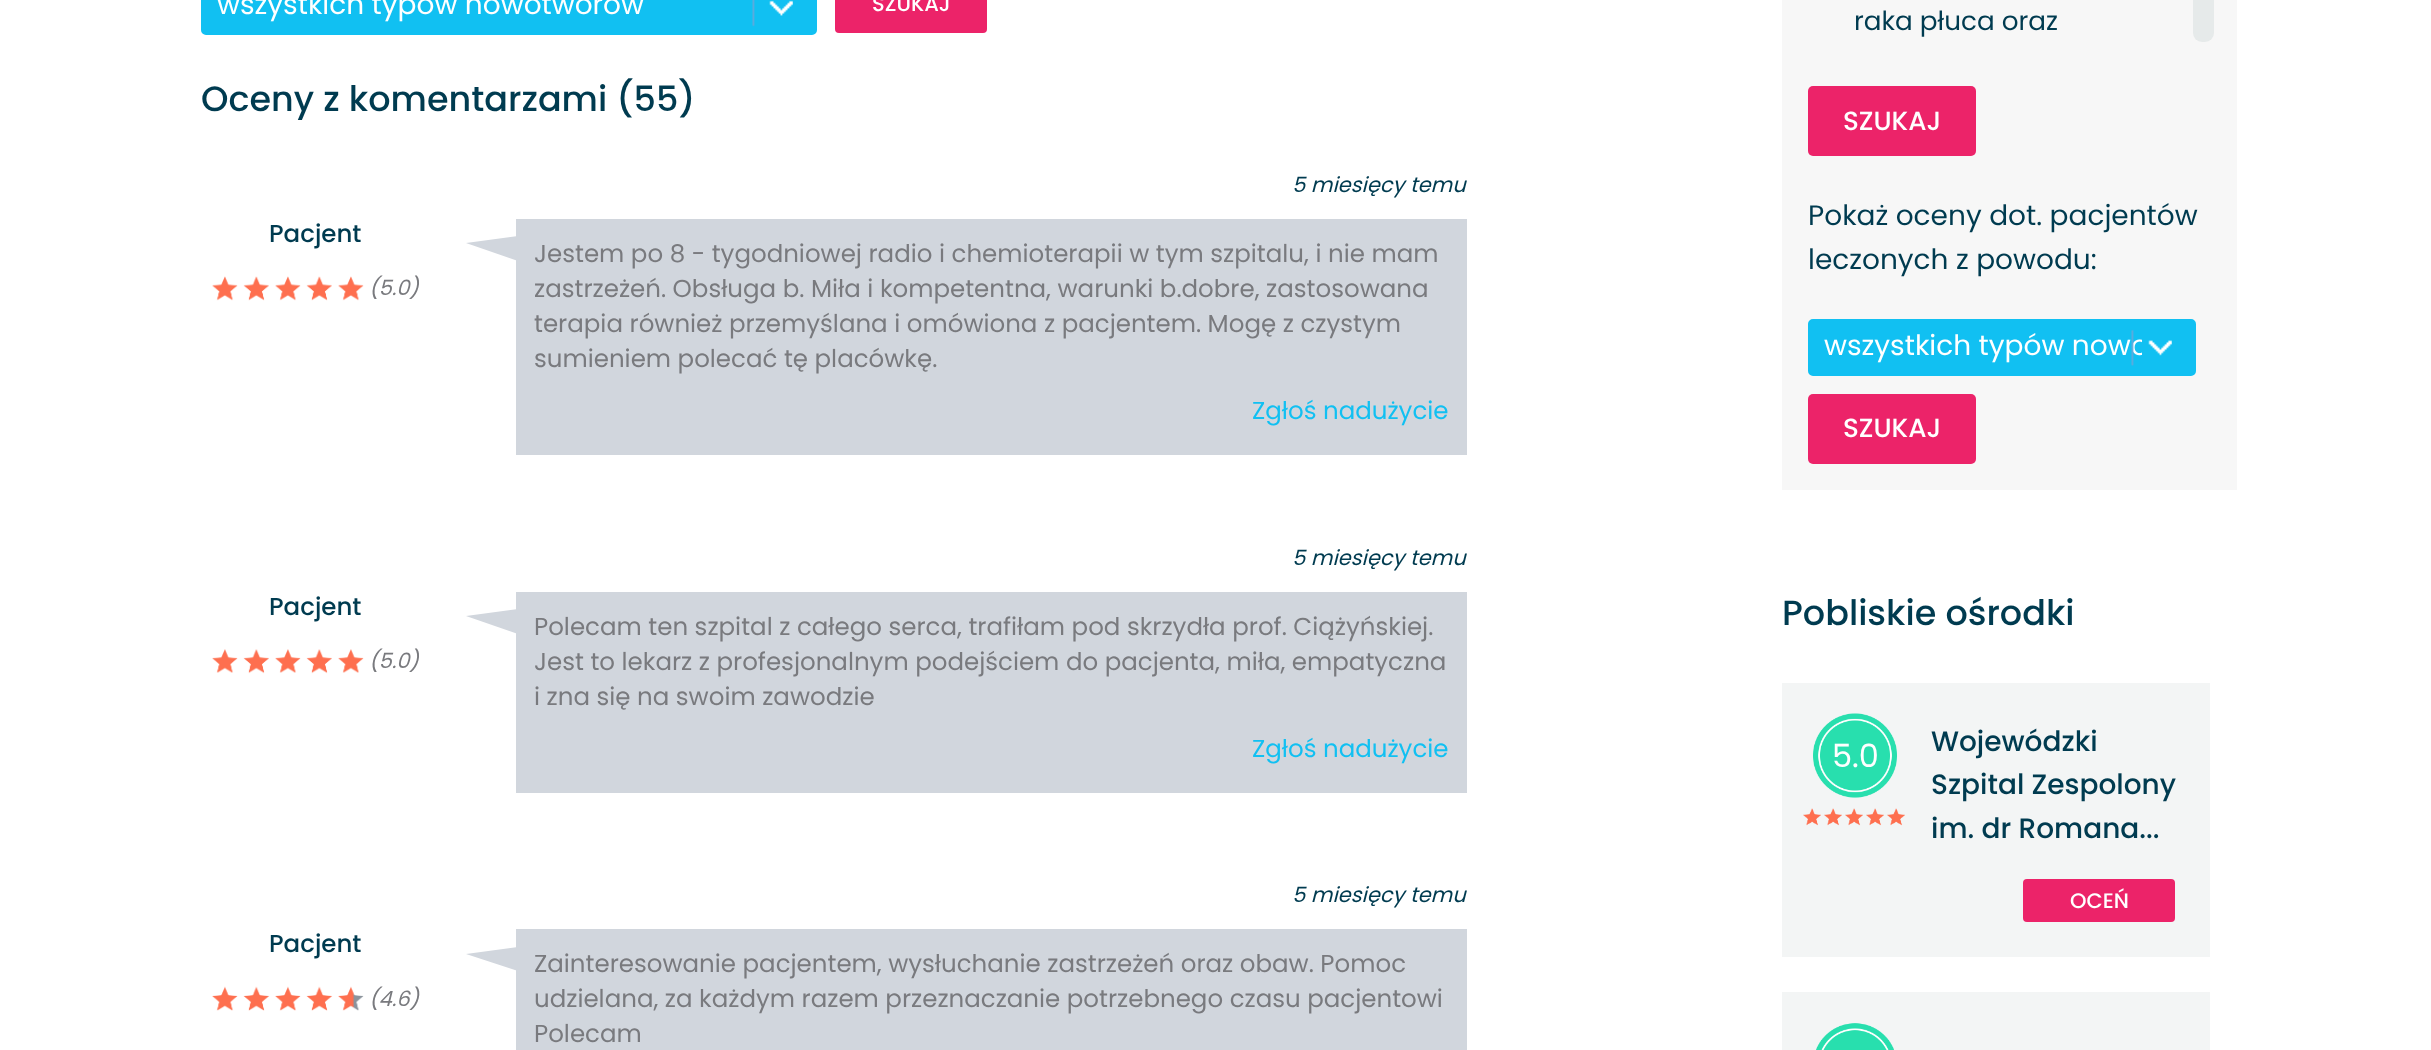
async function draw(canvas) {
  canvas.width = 2431
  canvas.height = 1050
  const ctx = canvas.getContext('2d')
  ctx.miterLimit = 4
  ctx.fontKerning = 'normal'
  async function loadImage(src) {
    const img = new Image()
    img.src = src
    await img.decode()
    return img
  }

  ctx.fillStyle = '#fff'
  ctx.fillRect(0, 0, 2431, 1050)
  ctx.fillStyle = '#11c0f2'
  ctx.beginPath()
  ctx.roundRect(202, -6, 614, 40, 4)
  ctx.fill()
  ctx.strokeStyle = '#11c0f2'
  ctx.lineWidth = 2
  ctx.stroke()
  ctx.font = '28px Poppins'
  ctx.fillStyle = '#fff'
  ctx.fillText('wszystkich typów nowotworów', 217, 14)
  ctx.drawImage(await loadImage('image0.png'), 752, 0, 41, 27)
  ctx.fillStyle = '#ec2369'
  ctx.beginPath()
  ctx.roundRect(835, -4, 152, 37, 4)
  ctx.fill()
  ctx.font = '500 21px Poppins'
  ctx.fillStyle = '#fff'
  ctx.fillText('SZUKAJ', 872, 11)
  ctx.font = '500 35px Poppins'
  ctx.fillStyle = '#003b50'
  ctx.fillText('Oceny z komentarzami (55)', 201, 111)
  ctx.font = '500 24.5px Poppins'
  ctx.fillText('Pacjent', 269, 242)
  ctx.drawImage(await loadImage('image1.png'), 212, 276, 26, 25)
  ctx.drawImage(await loadImage('image2.png'), 243, 276, 26, 25)
  ctx.drawImage(await loadImage('image3.png'), 275, 276, 26, 25)
  ctx.drawImage(await loadImage('image4.png'), 306, 276, 26, 25)
  ctx.drawImage(await loadImage('image5.png'), 338, 276, 26, 25)
  ctx.font = 'italic 21px Poppins'
  ctx.fillStyle = '#797a7e'
  ctx.fillText('(5.0)', 369, 295)
  ctx.fillStyle = '#003b50'
  ctx.fillText('5 miesięcy temu', 1292, 192)
  ctx.fillStyle = '#d1d6dd'
  ctx.fillRect(516, 219, 951, 236)
  ctx.beginPath()
  ctx.moveTo(518, 236)
  ctx.lineTo(518, 261)
  ctx.lineTo(466, 243)
  ctx.closePath()
  ctx.fill()
  ctx.font = '24.5px Poppins'
  ctx.fillStyle = '#797a7e'
  ctx.fillText('Jestem po 8 - tygodniowej radio i chemioterapii w tym szpitalu, i nie mam', 534, 262)
  ctx.fillText('zastrzeżeń. Obsługa b. Miła i kompetentna, warunki b.dobre, zastosowana', 534, 297)
  ctx.fillText('terapia również przemyślana i omówiona z pacjentem. Mogę z czystym', 534, 332)
  ctx.fillText('sumieniem polecać tę placówkę.', 534, 367)
  ctx.fillStyle = '#11c0f2'
  ctx.fillText('Zgłoś nadużycie', 1252, 419)
  ctx.font = '500 24.5px Poppins'
  ctx.fillStyle = '#003b50'
  ctx.fillText('Pacjent', 269, 615)
  ctx.drawImage(await loadImage('image6.png'), 212, 649, 26, 24)
  ctx.drawImage(await loadImage('image7.png'), 243, 649, 26, 25)
  ctx.drawImage(await loadImage('image8.png'), 275, 649, 26, 24)
  ctx.drawImage(await loadImage('image9.png'), 306, 649, 26, 25)
  ctx.drawImage(await loadImage('image10.png'), 338, 649, 26, 24)
  ctx.font = 'italic 21px Poppins'
  ctx.fillStyle = '#797a7e'
  ctx.fillText('(5.0)', 369, 668)
  ctx.fillStyle = '#003b50'
  ctx.fillText('5 miesięcy temu', 1292, 565)
  ctx.fillStyle = '#d1d6dd'
  ctx.fillRect(516, 592, 951, 201)
  ctx.beginPath()
  ctx.moveTo(518, 609)
  ctx.lineTo(518, 634)
  ctx.lineTo(466, 616)
  ctx.closePath()
  ctx.fill()
  ctx.font = '24.5px Poppins'
  ctx.fillStyle = '#797a7e'
  ctx.fillText('Polecam ten szpital z całego serca, trafiłam pod skrzydła prof. Ciążyńskiej.', 534, 635)
  ctx.fillText('Jest to lekarz z profesjonalnym podejściem do pacjenta, miła, empatyczna', 534, 670)
  ctx.fillText('i zna się na swoim zawodzie', 534, 705)
  ctx.fillStyle = '#11c0f2'
  ctx.fillText('Zgłoś nadużycie', 1252, 757)
  ctx.font = '500 24.5px Poppins'
  ctx.fillStyle = '#003b50'
  ctx.fillText('Pacjent', 269, 952)
  ctx.drawImage(await loadImage('image11.png'), 212, 986, 26, 25)
  ctx.drawImage(await loadImage('image12.png'), 243, 986, 27, 25)
  ctx.drawImage(await loadImage('image13.png'), 275, 986, 26, 25)
  ctx.drawImage(await loadImage('image14.png'), 306, 986, 27, 25)
  ctx.drawImage(await loadImage('image15.png'), 338, 986, 26, 25)
  ctx.font = 'italic 21px Poppins'
  ctx.fillStyle = '#797a7e'
  ctx.fillText('(4.6)', 369, 1006)
  ctx.fillStyle = '#003b50'
  ctx.fillText('5 miesięcy temu', 1292, 902)
  ctx.fillStyle = '#d1d6dd'
  ctx.fillRect(516, 929, 951, 121)
  ctx.beginPath()
  ctx.moveTo(518, 947)
  ctx.lineTo(518, 971)
  ctx.lineTo(466, 954)
  ctx.closePath()
  ctx.fill()
  ctx.font = '24.5px Poppins'
  ctx.fillStyle = '#797a7e'
  ctx.fillText('Zainteresowanie pacjentem, wysłuchanie zastrzeżeń oraz obaw. Pomoc', 534, 972)
  ctx.fillText('udzielana, za każdym razem przeznaczanie potrzebnego czasu pacjentowi', 534, 1007)
  ctx.fillText('Polecam', 534, 1042)
  ctx.fillStyle = '#f7f7f7'
  ctx.fillRect(1782, 0, 455, 490)
  ctx.font = '26.25px Poppins'
  ctx.fillStyle = '#003b50'
  ctx.fillText('raka płuca oraz', 1854, 30)
  ctx.fillStyle = '#e6eaea'
  ctx.beginPath()
  ctx.roundRect(2193, -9, 21, 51, 9)
  ctx.fill()
  ctx.fillStyle = '#ec2369'
  ctx.beginPath()
  ctx.roundRect(1808, 86, 168, 70, 5)
  ctx.fill()
  ctx.font = '500 26.25px Poppins'
  ctx.fillStyle = '#fff'
  ctx.fillText('SZUKAJ', 1843, 130)
  ctx.font = '28px Poppins'
  ctx.fillStyle = '#003b50'
  ctx.fillText('Pokaż oceny dot. pacjentów', 1808, 225)
  ctx.fillText('leczonych z powodu:', 1808, 269)
  ctx.fillStyle = '#11c0f2'
  ctx.beginPath()
  ctx.roundRect(1809, 320, 386, 55, 4)
  ctx.fill()
  ctx.stroke()
  ctx.save()
  ctx.beginPath()
  ctx.rect(1810, 320, 332, 46)
  ctx.clip()
  ctx.fillStyle = '#fff'
  ctx.fillText('wszystkich typów nowo', 1824, 355)
  ctx.restore()
  ctx.drawImage(await loadImage('image16.png'), 2131, 329, 41, 37)
  ctx.fillStyle = '#ec2369'
  ctx.beginPath()
  ctx.roundRect(1808, 394, 168, 70, 5)
  ctx.fill()
  ctx.font = '500 26.25px Poppins'
  ctx.fillStyle = '#fff'
  ctx.fillText('SZUKAJ', 1843, 437)
  ctx.font = '500 35px Poppins'
  ctx.fillStyle = '#003b50'
  ctx.fillText('Pobliskie ośrodki', 1782, 625)
  ctx.fillStyle = '#f3f5f5'
  ctx.fillRect(1782, 683, 428, 274)
  ctx.drawImage(await loadImage('image17.png'), 1813, 713, 84, 85)
  ctx.font = '32px Poppins'
  ctx.fillStyle = '#fff'
  ctx.fillText('5.0', 1832, 767)
  ctx.drawImage(await loadImage('image18.png'), 1803, 808, 18, 18)
  ctx.drawImage(await loadImage('image19.png'), 1824, 808, 18, 18)
  ctx.drawImage(await loadImage('image18.png'), 1845, 808, 18, 18)
  ctx.drawImage(await loadImage('image18.png'), 1866, 808, 18, 18)
  ctx.drawImage(await loadImage('image19.png'), 1887, 808, 18, 18)
  ctx.font = '500 28px Poppins'
  ctx.fillStyle = '#003b50'
  ctx.fillText('Wojewódzki', 1931, 751)
  ctx.fillText('Szpital Zespolony', 1931, 794)
  ctx.fillText('im. dr Romana...', 1931, 838)
  ctx.fillStyle = '#ec2369'
  ctx.beginPath()
  ctx.roundRect(2023, 879, 152, 43, 4)
  ctx.fill()
  ctx.font = '500 21px Poppins'
  ctx.fillStyle = '#fff'
  ctx.fillText('OCEŃ', 2070, 908)
  ctx.fillStyle = '#f3f5f5'
  ctx.fillRect(1782, 992, 428, 58)
  ctx.drawImage(await loadImage('image20.png'), 1816, 1023, 78, 27)
}

draw(document.querySelector('canvas'))
